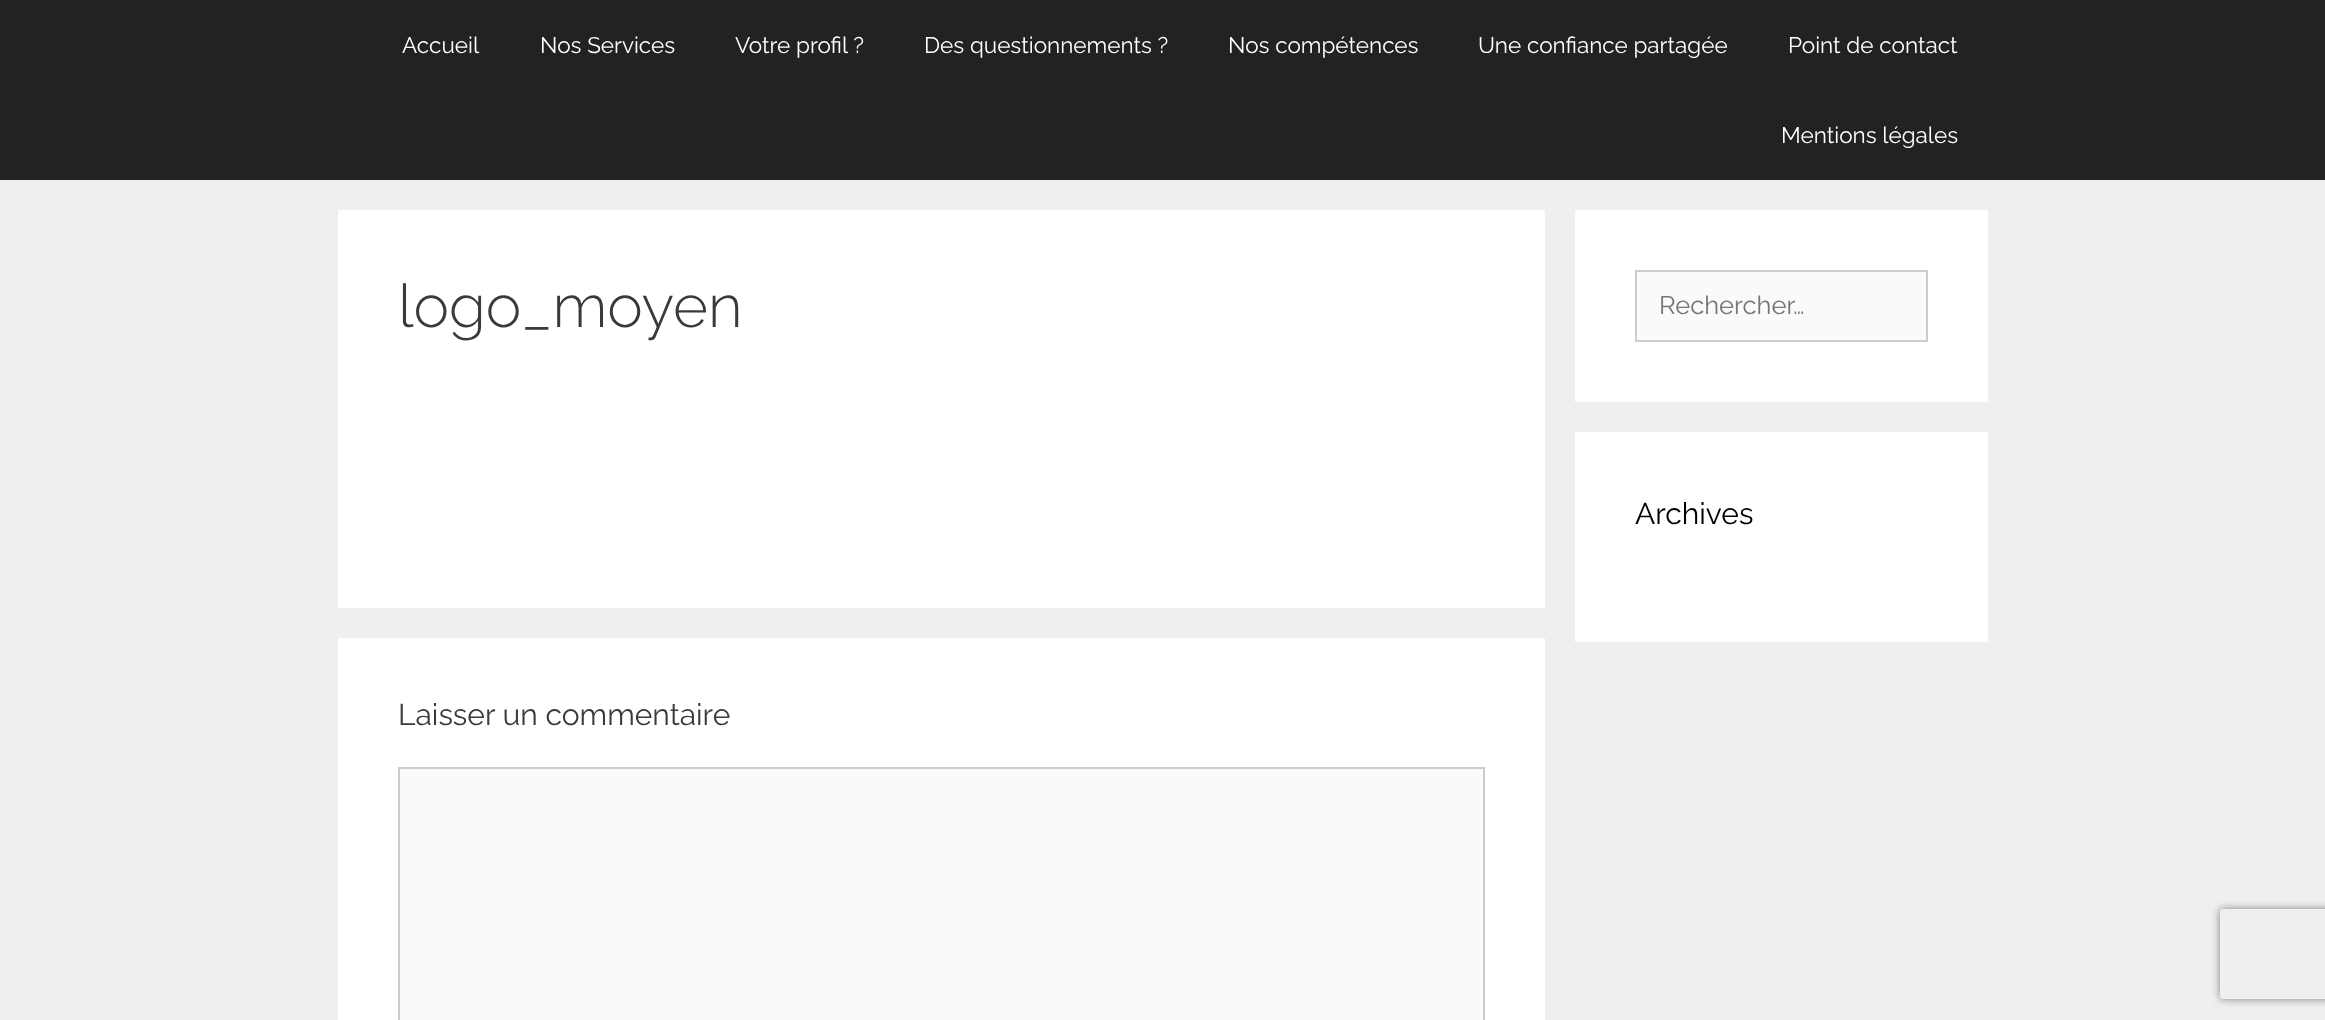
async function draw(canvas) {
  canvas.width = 2325
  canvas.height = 1020
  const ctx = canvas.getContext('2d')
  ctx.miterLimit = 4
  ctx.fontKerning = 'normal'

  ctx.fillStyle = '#efefef'
  ctx.fillRect(0, 0, 2325, 1020)
  ctx.fillStyle = '#222'
  ctx.fillRect(0, 0, 2325, 180)
  ctx.font = '22.5px Raleway'
  ctx.fillStyle = '#fff'
  ctx.fillText('Accueil', 402, 53)
  ctx.fillText('Nos Services', 540, 53)
  ctx.fillText('Votre profil ?', 735, 53)
  ctx.fillText('Des questionnements ?', 924, 53)
  ctx.fillText('Nos compétences', 1228, 53)
  ctx.fillText('Une confiance partagée', 1478, 53)
  ctx.fillText('Point de contact', 1788, 53)
  ctx.fillText('Mentions légales', 1781, 143)
  ctx.fillRect(338, 210, 1207, 398)
  ctx.font = '300 60px Raleway'
  ctx.fillStyle = '#3a3a3a'
  ctx.fillText('logo_moyen', 398, 327)
  ctx.fillStyle = '#fff'
  ctx.fillRect(338, 638, 1207, 382)
  ctx.font = '30px Raleway'
  ctx.fillStyle = '#3a3a3a'
  ctx.fillText('Laisser un commentaire', 398, 725)
  ctx.fillStyle = '#fafafa'
  ctx.beginPath()
  ctx.rect(399, 768, 1085, 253)
  ctx.fill()
  ctx.strokeStyle = '#ccc'
  ctx.lineWidth = 2
  ctx.stroke()
  ctx.fillStyle = '#fff'
  ctx.fillRect(1575, 210, 413, 192)
  ctx.fillStyle = '#fafafa'
  ctx.beginPath()
  ctx.rect(1636, 271, 291, 70)
  ctx.fill()
  ctx.stroke()
  ctx.font = '25.5px Raleway'
  ctx.fillStyle = '#757575'
  ctx.fillText('Rechercher…', 1659, 314)
  ctx.fillStyle = '#fff'
  ctx.fillRect(1575, 432, 413, 210)
  ctx.font = '30px Raleway'
  ctx.fillStyle = '#000'
  ctx.fillText('Archives', 1635, 524)
  ctx.save()
  ctx.beginPath()
  ctx.moveTo(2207, 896)
  ctx.lineTo(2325, 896)
  ctx.lineTo(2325, 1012)
  ctx.lineTo(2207, 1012)
  ctx.closePath()
  ctx.moveTo(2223, 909)
  ctx.lineTo(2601, 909)
  ctx.bezierCurveTo(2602.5, 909, 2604, 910.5, 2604, 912)
  ctx.lineTo(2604, 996)
  ctx.bezierCurveTo(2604, 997.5, 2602.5, 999, 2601, 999)
  ctx.lineTo(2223, 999)
  ctx.bezierCurveTo(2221.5, 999, 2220, 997.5, 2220, 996)
  ctx.lineTo(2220, 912)
  ctx.bezierCurveTo(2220, 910.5, 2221.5, 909, 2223, 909)
  ctx.closePath()
  ctx.clip('evenodd')
  ctx.fillStyle = '#808080'
  ctx.filter = 'blur(4px)'
  ctx.beginPath()
  ctx.roundRect(2220, 909, 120, 90, 3)
  ctx.fill()
  ctx.filter = 'none'
  ctx.restore()
}

draw(document.querySelector('canvas'))
